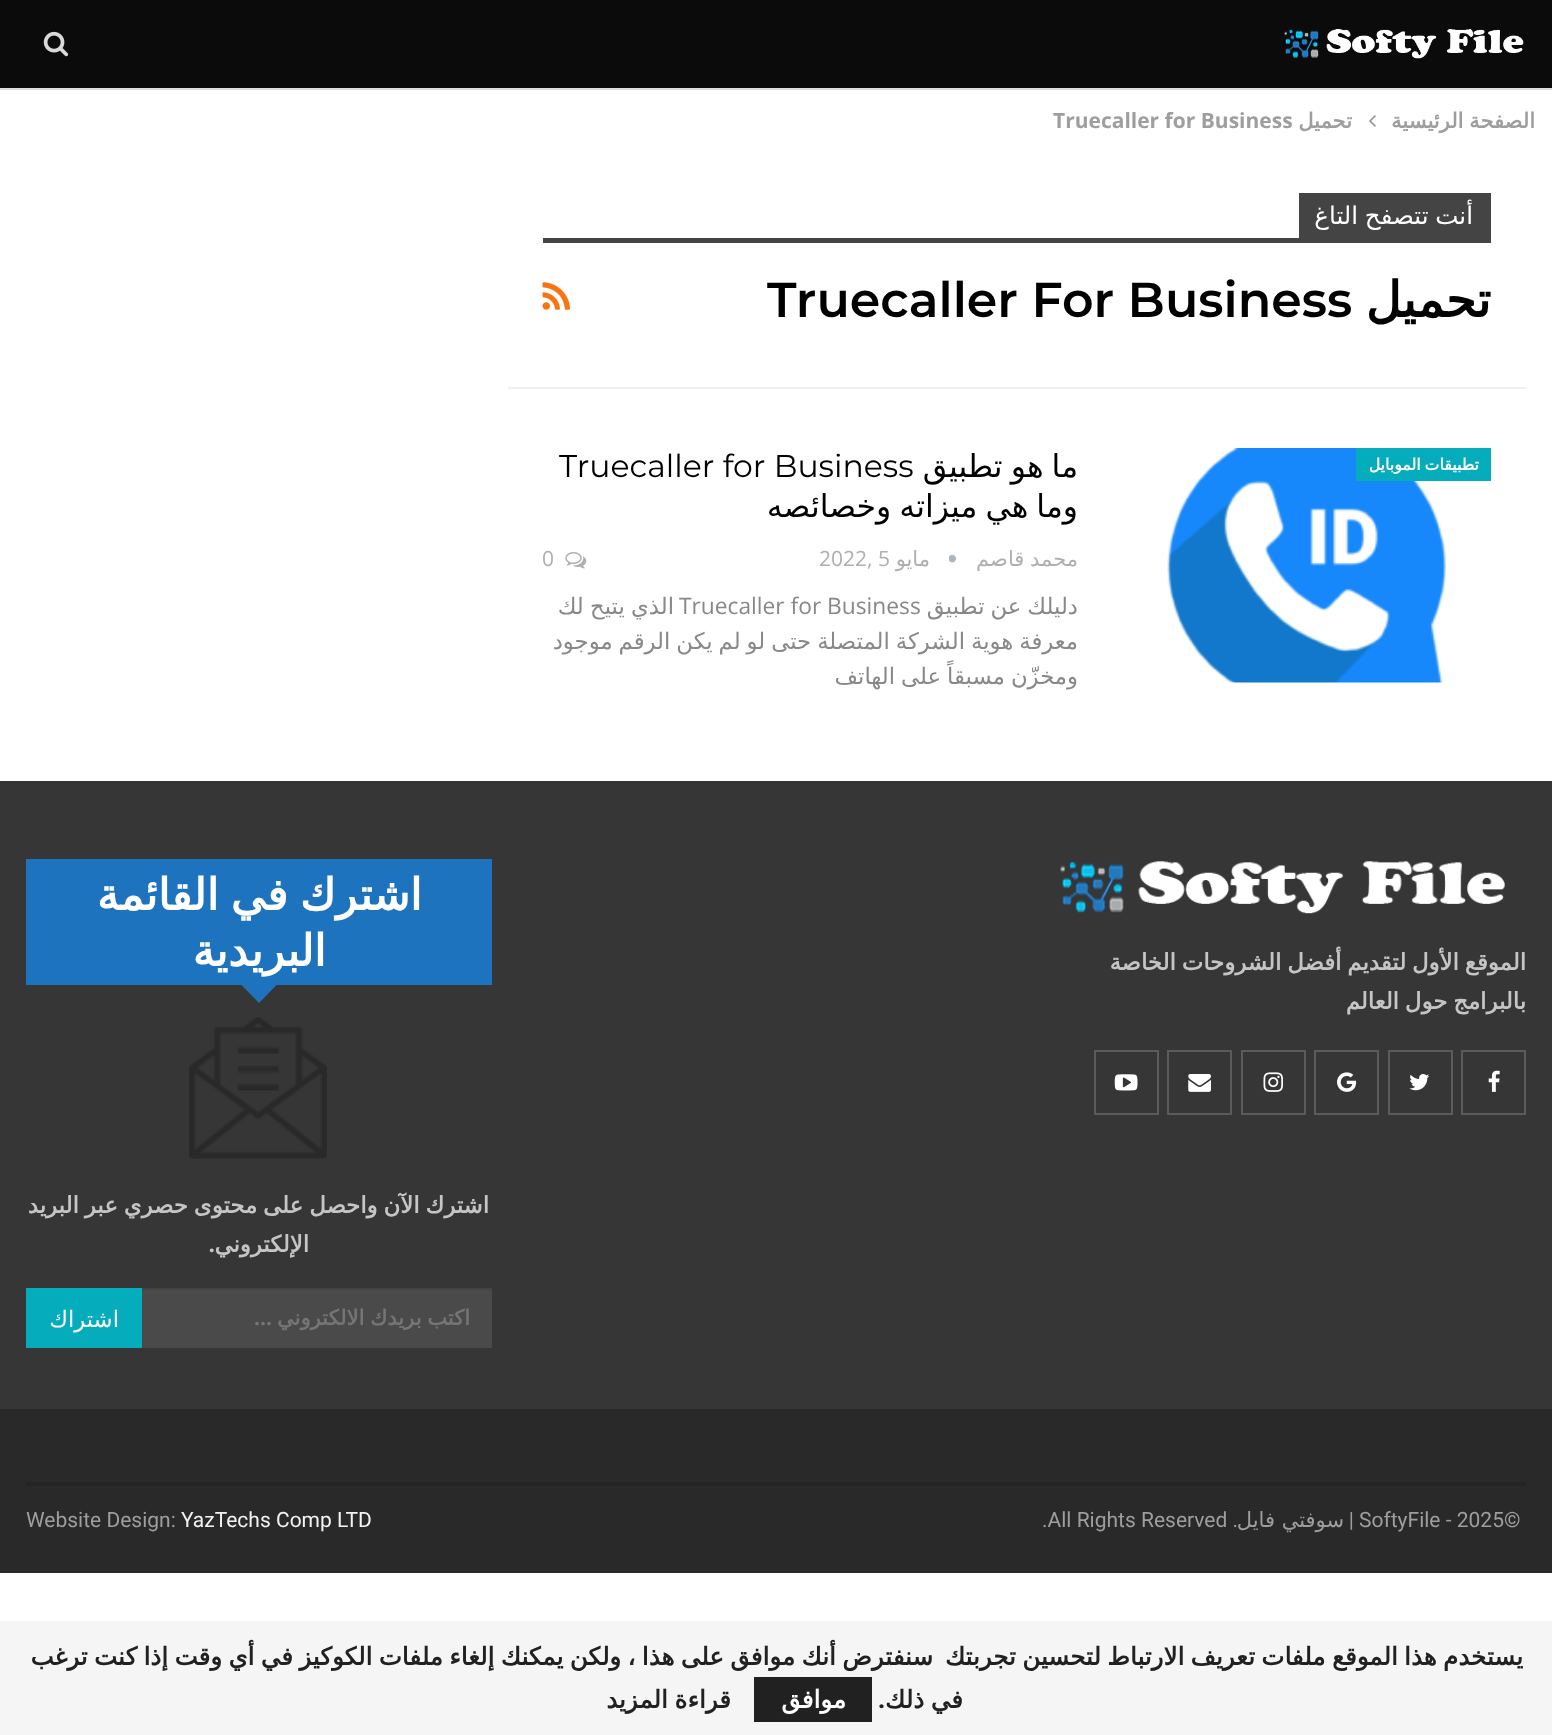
async function draw(canvas) {
  canvas.width = 1552
  canvas.height = 1735
  const ctx = canvas.getContext('2d')
  ctx.miterLimit = 4
  ctx.fontKerning = 'normal'
  async function loadImage(src) {
    const img = new Image()
    img.src = src
    await img.decode()
    return img
  }

  ctx.fillStyle = '#fff'
  ctx.fillRect(0, 0, 1552, 1735)
  ctx.fillStyle = '#0b0b0b'
  ctx.fillRect(0, 0, 1552, 88)
  ctx.fillStyle = '#dedede'
  ctx.fillRect(0, 88, 1552, 2)
  ctx.drawImage(await loadImage('image0.png'), 1284, 29, 240, 30)
  ctx.drawImage(await loadImage('image1.png'), 43, 31, 26, 26)
  ctx.wordSpacing = '-1px'
  ctx.direction = 'rtl'
  ctx.font = 'bold 21px DejaVu Sans'
  ctx.fillStyle = '#9e9e9e'
  ctx.fillText('الصفحة الرئيسية', 1535, 128)
  ctx.drawImage(await loadImage('image2.png'), 1369, 115, 7, 12)
  ctx.wordSpacing = '0px'
  ctx.fillText('تحميل', 1352, 128)
  ctx.direction = 'ltr'
  ctx.font = 'bold 21px Open Sans'
  ctx.fillText('Truecaller for Business', 1053, 128)
  ctx.fillStyle = '#f0f0f0'
  ctx.fillRect(508, 387, 1018, 2)
  ctx.fillStyle = '#444'
  ctx.fillRect(1299, 193, 192, 45)
  ctx.wordSpacing = '-1px'
  ctx.direction = 'rtl'
  ctx.font = '24.5px DejaVu Sans'
  ctx.fillStyle = '#fff'
  ctx.fillText('أنت تتصفح التاغ', 1473, 224)
  ctx.fillStyle = '#444'
  ctx.fillRect(543, 238, 948, 5)
  ctx.wordSpacing = '0px'
  ctx.font = 'bold 49px DejaVu Sans'
  ctx.fillStyle = '#000'
  ctx.fillText('تحميل', 1491, 317)
  ctx.direction = 'ltr'
  ctx.font = '600 49px Montserrat'
  ctx.fillText('Truecaller For Business', 767, 317)
  ctx.drawImage(await loadImage('image3.png'), 542, 282, 28, 28)
  ctx.drawImage(await loadImage('image4.png'), 1167, 448, 279, 235)
  ctx.fillStyle = '#05adbc'
  ctx.fillRect(1356, 448, 135, 33)
  ctx.wordSpacing = '-1px'
  ctx.direction = 'rtl'
  ctx.font = 'bold 15.75px DejaVu Sans'
  ctx.fillStyle = '#fff'
  ctx.fillText('تطبيقات الموبايل', 1479, 470)
  ctx.wordSpacing = '-2px'
  ctx.font = '31.5px DejaVu Sans'
  ctx.fillStyle = '#000'
  ctx.fillText('ما هو تطبيق', 1078, 477)
  ctx.wordSpacing = '0px'
  ctx.direction = 'ltr'
  ctx.font = '31.5px Montserrat'
  ctx.fillText('Truecaller for Business', 559, 477)
  ctx.wordSpacing = '-2px'
  ctx.direction = 'rtl'
  ctx.font = '31.5px DejaVu Sans'
  ctx.fillText('وما هي ميزاته وخصائصه', 1078, 517)
  ctx.wordSpacing = '-1px'
  ctx.font = '21px DejaVu Sans'
  ctx.fillStyle = '#afafaf'
  ctx.fillText('محمد قاصم', 1078, 566)
  ctx.drawImage(await loadImage('image5.png'), 949, 554, 7, 9)
  ctx.wordSpacing = '0px'
  ctx.fillText('مايو', 930, 566)
  ctx.direction = 'ltr'
  ctx.font = '21px Open Sans'
  ctx.fillText('2022, 5', 819, 566)
  ctx.drawImage(await loadImage('image6.png'), 565, 552, 22, 17)
  ctx.fillText('0', 542, 566)
  ctx.wordSpacing = '-1.25px'
  ctx.direction = 'rtl'
  ctx.font = '22.75px DejaVu Sans'
  ctx.fillStyle = '#888'
  ctx.fillText('دليلك عن تطبيق', 1078, 614)
  ctx.wordSpacing = '0px'
  ctx.direction = 'ltr'
  ctx.font = '22.75px Open Sans'
  ctx.fillText('Truecaller for Business', 679, 614)
  ctx.wordSpacing = '-1px'
  ctx.direction = 'rtl'
  ctx.font = '22.75px DejaVu Sans'
  ctx.fillText('الذي يتيح لك', 674, 614)
  ctx.wordSpacing = '-1.25px'
  ctx.fillText('معرفة هوية الشركة المتصلة حتى لو لم يكن الرقم موجود', 1078, 649)
  ctx.fillText('ومخزّن مسبقاً على الهاتف', 1078, 684)
  ctx.fillStyle = '#363636'
  ctx.fillRect(0, 781, 1552, 628)
  ctx.drawImage(await loadImage('image7.png'), 1060, 861, 445, 53)
  ctx.font = 'bold 22.75px DejaVu Sans'
  ctx.fillStyle = '#c5c5c5'
  ctx.fillText('الموقع الأول لتقديم أفضل الشروحات الخاصة', 1526, 970)
  ctx.fillText('بالبرامج حول العالم', 1526, 1009)
  ctx.strokeStyle = '#5b5b5b'
  ctx.lineWidth = 2
  ctx.strokeRect(1462, 1051, 63, 63)
  ctx.drawImage(await loadImage('image8.png'), 1488, 1070, 12, 22)
  ctx.strokeRect(1389, 1051, 63, 63)
  ctx.drawImage(await loadImage('image9.png'), 1409, 1074, 21, 17)
  ctx.strokeRect(1315, 1051, 63, 63)
  ctx.drawImage(await loadImage('image10.png'), 1337, 1072, 20, 20)
  ctx.strokeRect(1242, 1051, 63, 63)
  ctx.drawImage(await loadImage('image11.png'), 1263, 1072, 20, 20)
  ctx.strokeRect(1168, 1051, 63, 63)
  ctx.drawImage(await loadImage('image12.png'), 1188, 1074, 23, 18)
  ctx.strokeRect(1095, 1051, 63, 63)
  ctx.drawImage(await loadImage('image13.png'), 1114, 1074, 24, 17)
  ctx.fillStyle = '#1e73be'
  ctx.fillRect(26, 859, 466, 126)
  ctx.wordSpacing = '-2px'
  ctx.font = 'bold 43.75px DejaVu Sans'
  ctx.fillStyle = '#fff'
  ctx.fillText('اشترك في القائمة', 422, 910)
  ctx.wordSpacing = '0px'
  ctx.fillText('البريدية', 326, 966)
  ctx.fillStyle = '#1e73be'
  ctx.beginPath()
  ctx.moveTo(241.5, 985)
  ctx.lineTo(276.5, 985)
  ctx.lineTo(259, 1003)
  ctx.closePath()
  ctx.fill()
  ctx.drawImage(await loadImage('image14.png'), 189, 1017, 138, 142)
  ctx.wordSpacing = '-1.25px'
  ctx.font = 'bold 22.75px DejaVu Sans'
  ctx.fillStyle = '#c5c5c5'
  ctx.fillText('اشترك الآن واحصل على محتوى حصري عبر البريد', 489, 1213)
  ctx.wordSpacing = '0px'
  ctx.fillText('الإلكتروني', 309, 1252)
  ctx.font = 'bold 22.75px Open Sans'
  ctx.fillText('.', 215, 1252)
  ctx.fillStyle = '#4a4a4a'
  ctx.fillRect(142, 1290, 350, 58)
  ctx.fillStyle = '#444'
  ctx.fillRect(142, 1288, 350, 2)
  ctx.wordSpacing = '-1px'
  ctx.font = 'bold 21px DejaVu Sans'
  ctx.fillStyle = '#757575'
  ctx.fillText('اكتب بريدك الالكتروني', 470, 1325)
  ctx.wordSpacing = '0px'
  ctx.font = 'bold 21px Open Sans'
  ctx.fillText('...', 272, 1325)
  ctx.fillStyle = '#05adbc'
  ctx.fillRect(26, 1288, 116, 60)
  ctx.font = '22.75px DejaVu Sans'
  ctx.fillStyle = '#fff'
  ctx.fillText('اشتراك', 119, 1327)
  ctx.fillStyle = '#292929'
  ctx.fillRect(0, 1409, 1552, 164)
  ctx.fillStyle = '#242424'
  ctx.fillRect(26, 1482, 1500, 4)
  ctx.direction = 'ltr'
  ctx.font = '21px Roboto'
  ctx.fillStyle = '#9e9e9e'
  ctx.fillText('SoftyFile - 2025©', 1359, 1527)
  ctx.direction = 'rtl'
  ctx.fillText('|', 1354, 1527)
  ctx.font = '21px DejaVu Sans'
  ctx.fillText('سوفتي فايل', 1344, 1527)
  ctx.font = '21px Roboto'
  ctx.fillText('.', 1238, 1527)
  ctx.direction = 'ltr'
  ctx.fillText('.All Rights Reserved', 1042, 1527)
  ctx.fillStyle = '#f3f3f3'
  ctx.fillText('YazTechs Comp LTD', 181, 1527)
  ctx.fillStyle = '#9e9e9e'
  ctx.fillText('Website Design:', 26, 1527)
  ctx.fillStyle = '#f5f5f5'
  ctx.fillRect(0, 1621, 1552, 114)
  ctx.wordSpacing = '-1.4px'
  ctx.direction = 'rtl'
  ctx.font = 'bold 24.5px DejaVu Sans'
  ctx.fillStyle = '#212121'
  ctx.fillText('يستخدم هذا الموقع ملفات تعريف الارتباط لتحسين تجربتك', 1523, 1665)
  ctx.fillText('سنفترض أنك موافق على هذا ، ولكن يمكنك إلغاء ملفات الكوكيز في أي وقت إذا كنت ترغب', 933, 1665)
  ctx.wordSpacing = '-1px'
  ctx.fillText('في ذلك', 963, 1708)
  ctx.wordSpacing = '0px'
  ctx.font = 'bold 24.5px Open Sans'
  ctx.fillText('.', 885, 1708)
  ctx.fillRect(754, 1677, 118, 45)
  ctx.font = 'bold 24.5px DejaVu Sans'
  ctx.fillStyle = '#fff'
  ctx.fillText('موافق', 846, 1708)
  ctx.wordSpacing = '-1px'
  ctx.fillStyle = '#212121'
  ctx.fillText('قراءة المزيد', 731, 1708)
}

draw(document.querySelector('canvas'))
